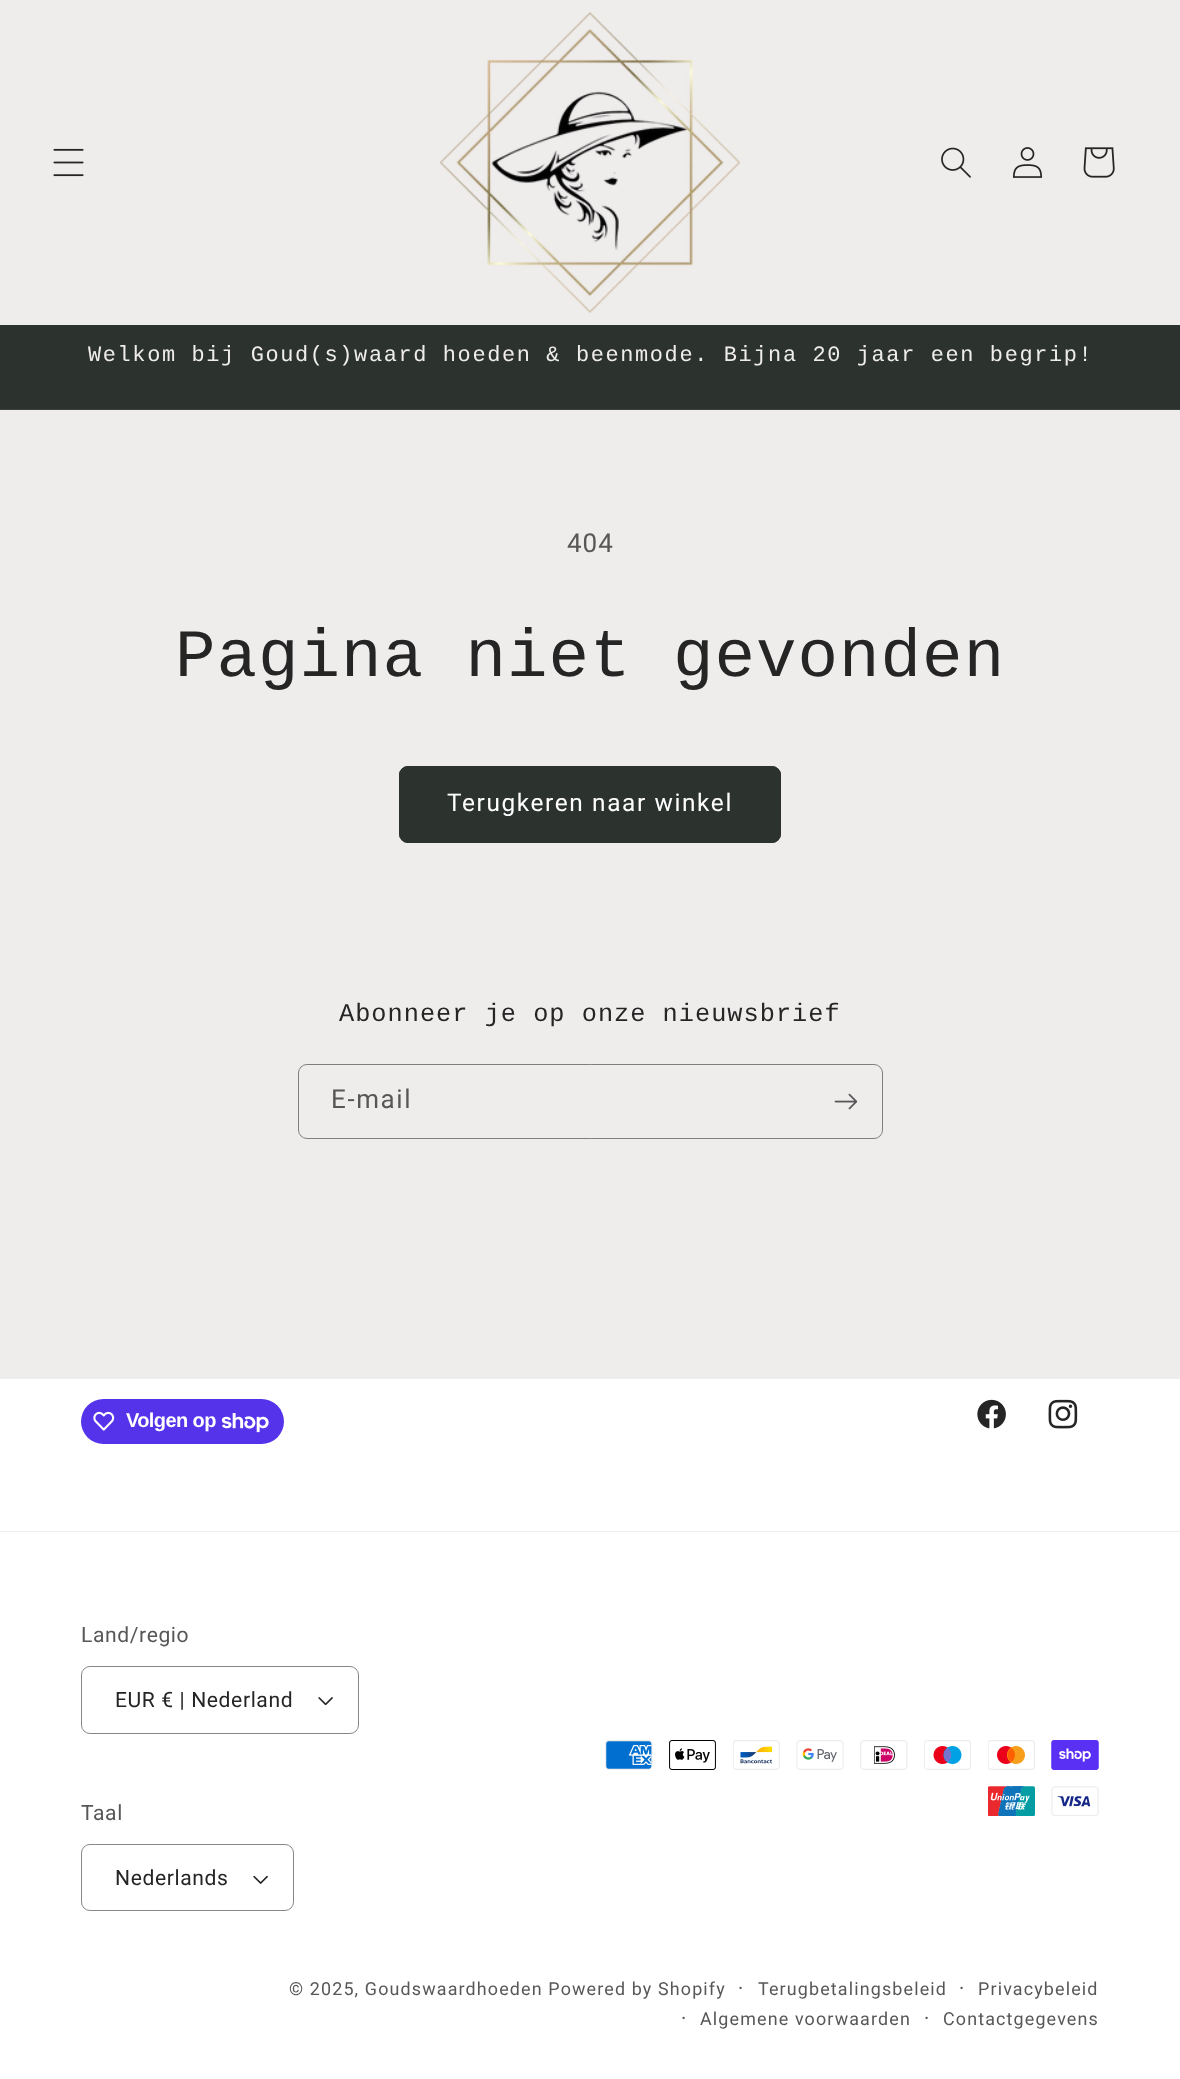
async function draw(canvas) {
  canvas.width = 1180
  canvas.height = 2079
  const ctx = canvas.getContext('2d')
  ctx.miterLimit = 4
  ctx.fontKerning = 'normal'
  async function loadImage(src) {
    const img = new Image()
    img.src = src
    await img.decode()
    return img
  }

  ctx.fillStyle = '#efecec'
  ctx.fillRect(0, 0, 1180, 2079)
  ctx.drawImage(await loadImage('image0.png'), 53, 148, 31, 29)
  ctx.drawImage(await loadImage('image1.png'), 440, 12, 301, 301)
  ctx.drawImage(await loadImage('image2.png'), 941, 147, 30, 31)
  ctx.drawImage(await loadImage('image3.png'), 1012, 147, 31, 31)
  ctx.drawImage(await loadImage('image4.png'), 1083, 147, 32, 31)
  ctx.fillStyle = '#2c332f'
  ctx.fillRect(0, 325, 1180, 84)
  ctx.fillStyle = '#3c423e'
  ctx.fillRect(0, 409, 1180, 1)
  ctx.letterSpacing = '1.62px'
  ctx.font = '21.95px Liberation Mono'
  ctx.fillStyle = '#efecec'
  ctx.fillText('Welkom bij Goud(s)waard hoeden & beenmode. Bijna 20 jaar een begrip!', 88, 361)
  ctx.letterSpacing = '1px'
  ctx.font = '26px Roboto'
  ctx.fillStyle = '#585757'
  ctx.fillText('404', 567, 552)
  ctx.font = '67.5px Liberation Mono'
  ctx.fillStyle = '#252525'
  ctx.fillText('Pagina niet gevonden', 175, 676)
  ctx.fillStyle = '#2c332f'
  ctx.beginPath()
  ctx.roundRect(399, 766, 382, 77, 9)
  ctx.fill()
  ctx.beginPath()
  ctx.roundRect(399.5, 766.5, 381, 76, 8.5)
  ctx.strokeStyle = '#2c332f'
  ctx.stroke()
  ctx.letterSpacing = '1.62px'
  ctx.font = '24.4px Roboto'
  ctx.fillStyle = '#fff'
  ctx.fillText('Terugkeren naar winkel', 447, 811)
  ctx.letterSpacing = '1px'
  ctx.font = '25.3px Liberation Mono'
  ctx.fillStyle = '#252525'
  ctx.fillText('Abonneer je op onze nieuwsbrief', 339, 1021)
  ctx.beginPath()
  ctx.roundRect(298.5, 1064.5, 584, 74, 8.5)
  ctx.strokeStyle = '#807f7f'
  ctx.stroke()
  ctx.letterSpacing = '1.62px'
  ctx.font = '26px Roboto'
  ctx.fillStyle = '#585757'
  ctx.fillText('E‑mail', 331, 1108)
  ctx.drawImage(await loadImage('image5.png'), 834, 1093, 24, 17)
  ctx.fillStyle = '#fff'
  ctx.fillRect(0, 1379, 1180, 700)
  ctx.fillStyle = '#5433eb'
  ctx.beginPath()
  ctx.roundRect(81, 1399, 203, 45, 22.5)
  ctx.fill()
  ctx.drawImage(await loadImage('image6.png'), 93, 1411, 22, 20)
  ctx.letterSpacing = '-0.6px'
  ctx.font = 'bold 20px Liberation Sans'
  ctx.fillStyle = '#fff'
  ctx.fillText('Volgen op', 126, 1427)
  ctx.drawImage(await loadImage('image7.png'), 221, 1413, 48, 20)
  ctx.drawImage(await loadImage('image8.png'), 977, 1399, 29, 30)
  ctx.drawImage(await loadImage('image9.png'), 1048, 1399, 30, 30)
  ctx.fillStyle = '#eee'
  ctx.fillRect(0, 1531, 1180, 1)
  ctx.letterSpacing = '0.6px'
  ctx.font = '21.1px Roboto'
  ctx.fillStyle = '#585757'
  ctx.fillText('Land/regio', 81, 1642)
  ctx.drawImage(await loadImage('image10.png'), 318, 1697, 15, 9)
  ctx.beginPath()
  ctx.roundRect(81.5, 1666.5, 277, 67, 8.5)
  ctx.strokeStyle = '#878787'
  ctx.stroke()
  ctx.fillStyle = '#252525'
  ctx.fillText('EUR € | Nederland', 115, 1707)
  ctx.fillStyle = '#585757'
  ctx.fillText('Taal', 81, 1820)
  ctx.drawImage(await loadImage('image11.png'), 253, 1875, 15, 9)
  ctx.beginPath()
  ctx.roundRect(81.5, 1844.5, 212, 66, 8.5)
  ctx.stroke()
  ctx.fillStyle = '#252525'
  ctx.fillText('Nederlands', 115, 1885)
  ctx.drawImage(await loadImage('image12.png'), 605, 1740, 48, 30)
  ctx.drawImage(await loadImage('image13.png'), 669, 1740, 47, 30)
  ctx.drawImage(await loadImage('image14.png'), 733, 1740, 47, 30)
  ctx.drawImage(await loadImage('image15.png'), 796, 1740, 48, 30)
  ctx.drawImage(await loadImage('image16.png'), 860, 1740, 48, 30)
  ctx.drawImage(await loadImage('image17.png'), 924, 1740, 47, 30)
  ctx.drawImage(await loadImage('image18.png'), 988, 1740, 47, 30)
  ctx.drawImage(await loadImage('image19.png'), 1051, 1740, 48, 30)
  ctx.drawImage(await loadImage('image20.png'), 988, 1786, 47, 30)
  ctx.drawImage(await loadImage('image21.png'), 1051, 1786, 48, 30)
  ctx.letterSpacing = '1.15px'
  ctx.font = '17.9px Roboto'
  ctx.fillStyle = '#585757'
  ctx.fillText('© 2025, Goudswaardhoeden Powered by Shopify', 289, 1995)
  ctx.font = '20px Roboto'
  ctx.fillText('·', 738, 1995)
  ctx.font = '17.9px Roboto'
  ctx.fillText('Terugbetalingsbeleid', 758, 1995)
  ctx.font = '20px Roboto'
  ctx.fillText('·', 959, 1995)
  ctx.font = '17.9px Roboto'
  ctx.fillText('Privacybeleid', 978, 1995)
  ctx.font = '20px Roboto'
  ctx.fillText('·', 681, 2025)
  ctx.font = '17.9px Roboto'
  ctx.fillText('Algemene voorwaarden', 700, 2025)
  ctx.font = '20px Roboto'
  ctx.fillText('·', 924, 2025)
  ctx.font = '17.9px Roboto'
  ctx.fillText('Contactgegevens', 943, 2025)
}

draw(document.querySelector('canvas'))
